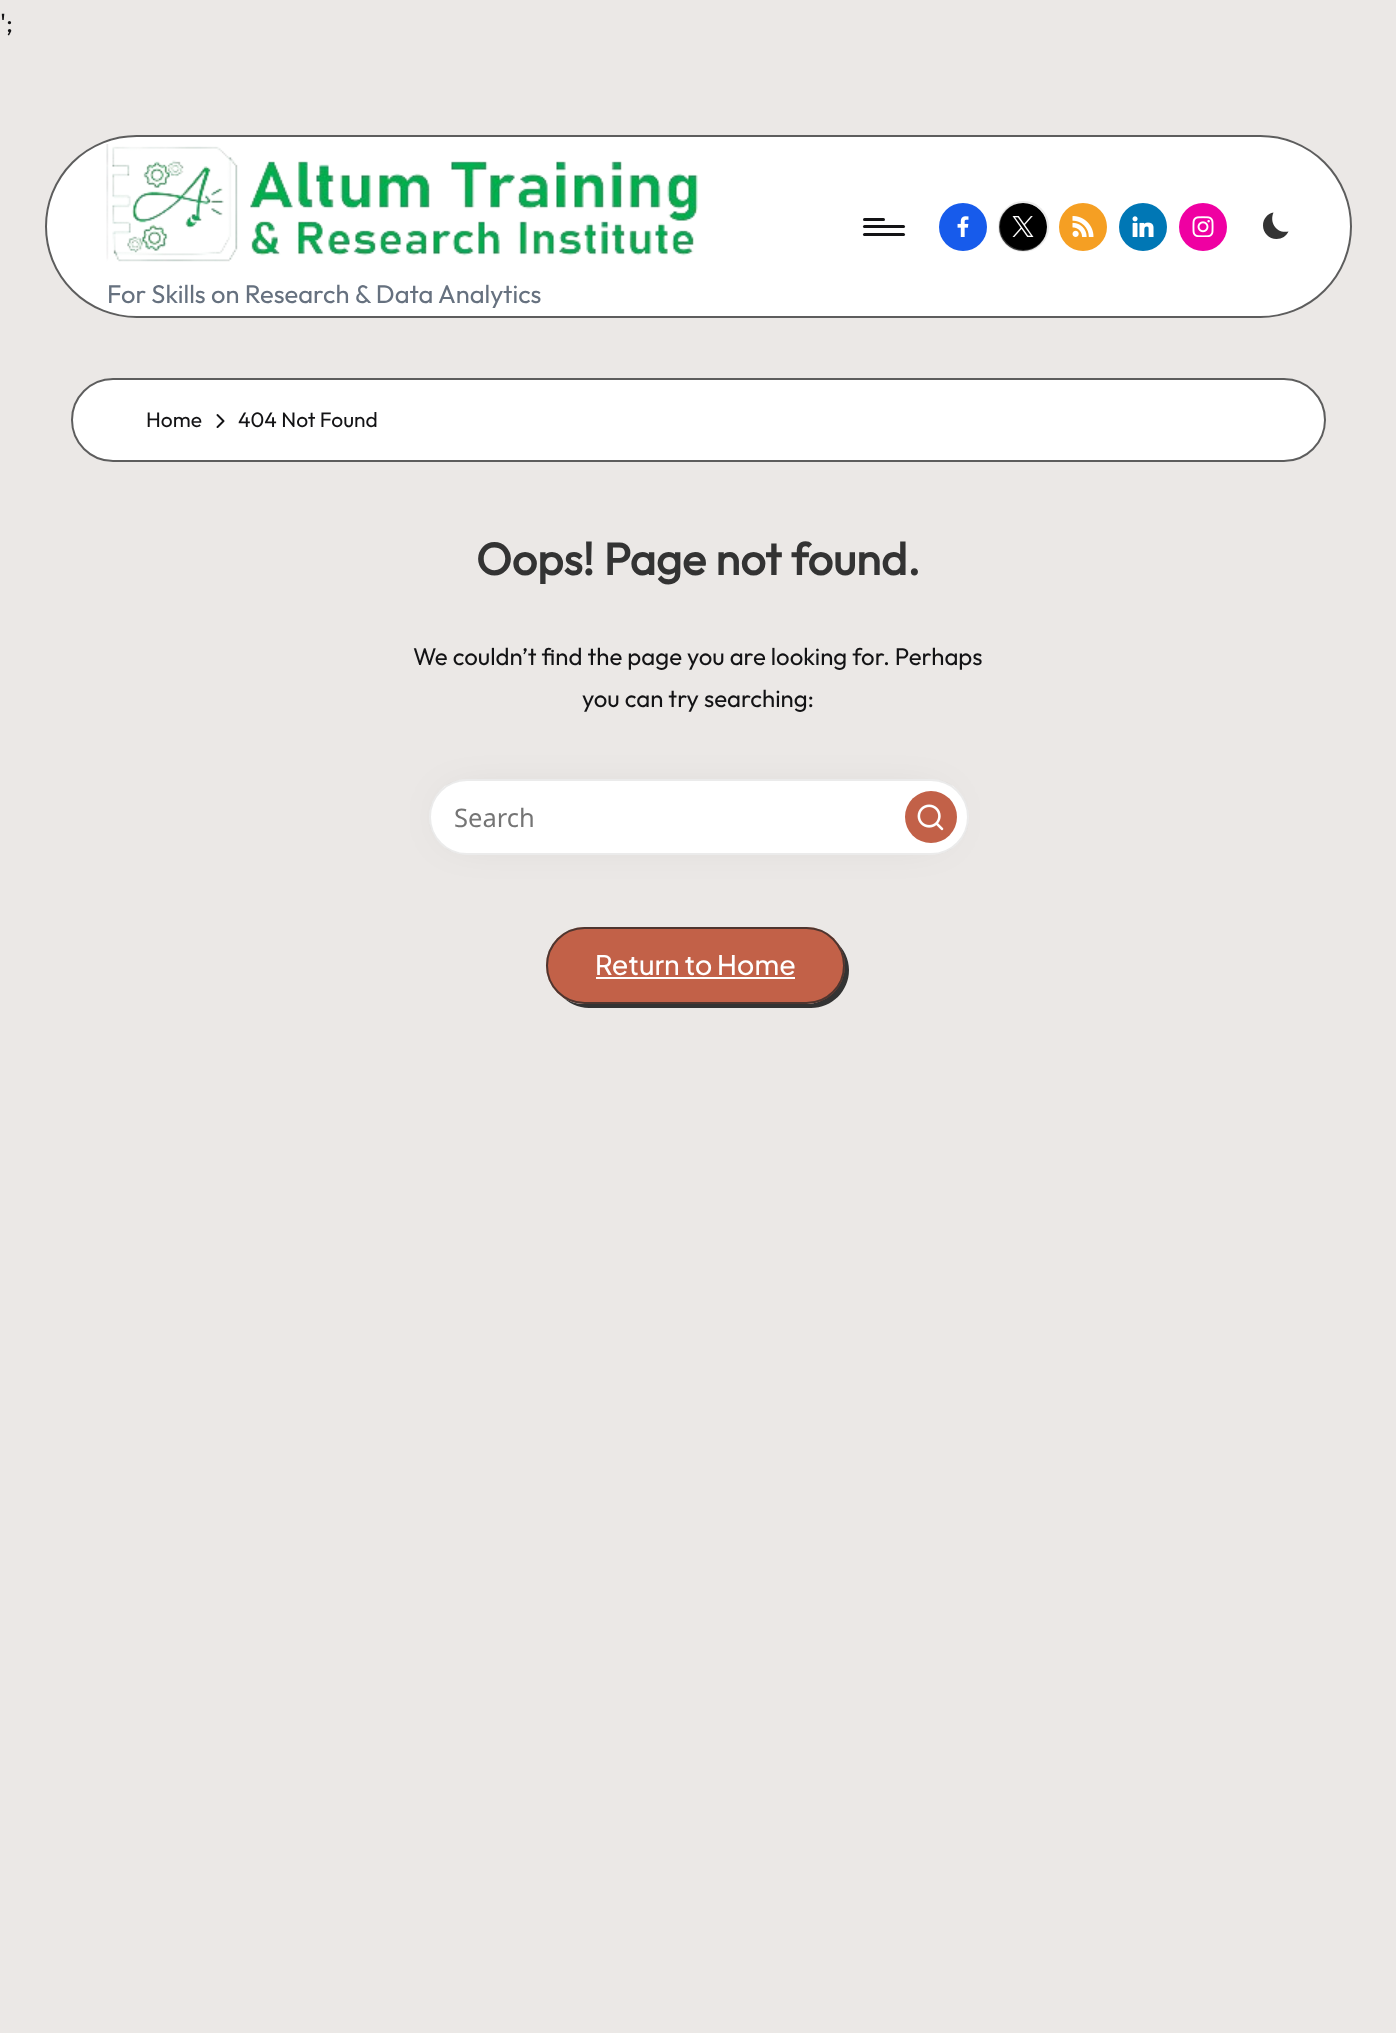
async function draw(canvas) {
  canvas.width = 1396
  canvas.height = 2033
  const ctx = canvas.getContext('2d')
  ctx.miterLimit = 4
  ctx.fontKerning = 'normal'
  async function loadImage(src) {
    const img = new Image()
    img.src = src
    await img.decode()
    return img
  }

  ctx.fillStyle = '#ebe8e6'
  ctx.fillRect(0, 0, 1396, 2033)
  ctx.font = '100 25.5px Outfit'
  ctx.fillStyle = '#131315'
  ctx.fillText('\';', 0, 32)
  ctx.fillStyle = '#fff'
  ctx.beginPath()
  ctx.roundRect(45, 135, 1307, 183, 91.5)
  ctx.fill()
  ctx.beginPath()
  ctx.roundRect(46, 136, 1305, 181, 90.5)
  ctx.strokeStyle = '#272727bf'
  ctx.lineWidth = 2
  ctx.stroke()
  ctx.fillStyle = '#131315'
  ctx.beginPath()
  ctx.roundRect(863, 225, 42, 3, 1.5)
  ctx.fill()
  ctx.beginPath()
  ctx.roundRect(863, 218, 22, 3, 1.5)
  ctx.fill()
  ctx.beginPath()
  ctx.roundRect(863, 233, 42, 3, 1.5)
  ctx.fill()
  ctx.fillStyle = '#175beb'
  ctx.beginPath()
  ctx.arc(963, 227, 24, 0, 2 * Math.PI)
  ctx.fill()
  ctx.drawImage(await loadImage('image0.png'), 957, 216, 12, 21)
  ctx.fillStyle = '#000'
  ctx.beginPath()
  ctx.arc(1023, 227, 24, 0, 2 * Math.PI)
  ctx.fill()
  ctx.beginPath()
  ctx.arc(1023.5, 226.5, 24.5, 0, 2 * Math.PI)
  ctx.strokeStyle = '#bebebe4d'
  ctx.stroke()
  ctx.drawImage(await loadImage('image1.png'), 1012, 216, 22, 21)
  ctx.fillStyle = '#f59f23'
  ctx.beginPath()
  ctx.arc(1083, 227, 24, 0, 2 * Math.PI)
  ctx.fill()
  ctx.drawImage(await loadImage('image2.png'), 1072, 216, 22, 21)
  ctx.fillStyle = '#0077b5'
  ctx.beginPath()
  ctx.arc(1143, 227, 24, 0, 2 * Math.PI)
  ctx.fill()
  ctx.drawImage(await loadImage('image3.png'), 1132, 216, 22, 21)
  ctx.fillStyle = '#ef00a2'
  ctx.beginPath()
  ctx.arc(1203, 227, 24, 0, 2 * Math.PI)
  ctx.fill()
  ctx.drawImage(await loadImage('image4.png'), 1192, 216, 22, 21)
  ctx.fillStyle = '#333'
  ctx.beginPath()
  ctx.moveTo(1288.5, 231.5)
  ctx.bezierCurveTo(1277, 234, 1269, 223, 1273.5, 212.5)
  ctx.bezierCurveTo(1267.5, 213.5, 1263, 219, 1263, 225.5)
  ctx.bezierCurveTo(1263, 233, 1269, 239, 1276.5, 239)
  ctx.bezierCurveTo(1282, 239, 1286.5, 236, 1288.5, 231.5)
  ctx.closePath()
  ctx.fill()
  ctx.drawImage(await loadImage('image5.png'), 106, 144, 592, 118)
  ctx.fillStyle = '#66717f'
  ctx.fillText('For Skills on Research & Data Analytics', 107, 303)
  ctx.fillStyle = '#fff'
  ctx.beginPath()
  ctx.roundRect(71, 378, 1255, 84, 42)
  ctx.fill()
  ctx.beginPath()
  ctx.roundRect(72, 379, 1253, 82, 41)
  ctx.strokeStyle = '#272727bf'
  ctx.stroke()
  ctx.font = '100 21px Outfit'
  ctx.fillStyle = '#131315'
  ctx.fillText('Home', 146, 427)
  ctx.drawImage(await loadImage('image6.png'), 216, 414, 9, 15)
  ctx.fillText('404 Not Found', 238, 427)
  ctx.font = 'bold 45px Outfit'
  ctx.fillStyle = '#333'
  ctx.fillText('Oops! Page not found.', 476, 575)
  ctx.font = '100 24px Outfit'
  ctx.fillStyle = '#131315'
  ctx.fillText('We couldn’t find the page you are looking for. Perhaps', 413, 665)
  ctx.fillText('you can try searching:', 582, 707)
  ctx.fillStyle = '#00000026'
  ctx.filter = 'blur(24px)'
  ctx.beginPath()
  ctx.roundRect(449, 803, 492, 28, 14)
  ctx.fill()
  ctx.filter = 'none'
  ctx.fillStyle = '#fff'
  ctx.beginPath()
  ctx.roundRect(429, 779, 540, 76, 38)
  ctx.fill()
  ctx.beginPath()
  ctx.roundRect(430, 780, 538, 74, 37)
  ctx.strokeStyle = '#bebebe4d'
  ctx.stroke()
  ctx.font = '25.5px Noto Sans'
  ctx.fillStyle = '#757575'
  ctx.fillText('Search', 454, 827)
  ctx.fillStyle = '#c26148'
  ctx.beginPath()
  ctx.arc(931, 817, 26, 0, 2 * Math.PI)
  ctx.fill()
  ctx.drawImage(await loadImage('image7.png'), 917, 804, 27, 27)
  ctx.fillStyle = '#333'
  ctx.beginPath()
  ctx.moveTo(561, 995)
  ctx.bezierCurveTo(568, 1003, 578, 1008, 589, 1008)
  ctx.lineTo(811, 1008)
  ctx.bezierCurveTo(832, 1008, 849, 991, 849, 970)
  ctx.bezierCurveTo(849, 959, 844, 949, 836, 942)
  ctx.bezierCurveTo(842, 948, 844, 956, 844, 965)
  ctx.bezierCurveTo(844, 986, 827, 1004, 806, 1004)
  ctx.lineTo(584, 1004)
  ctx.bezierCurveTo(575, 1004, 567, 1001, 561, 995)
  ctx.closePath()
  ctx.fill()
  ctx.fillStyle = '#c26148'
  ctx.beginPath()
  ctx.roundRect(546, 927, 299, 77, 38.5)
  ctx.fill()
  ctx.beginPath()
  ctx.roundRect(547, 928, 297, 75, 37.5)
  ctx.strokeStyle = '#272727bf'
  ctx.stroke()
  ctx.font = '500 27px Plus Jakarta Sans'
  ctx.fillStyle = '#fff'
  ctx.fillText('Return to Home', 595, 975)
  ctx.fillRect(596, 977, 199, 2)
}

draw(document.querySelector('canvas'))
